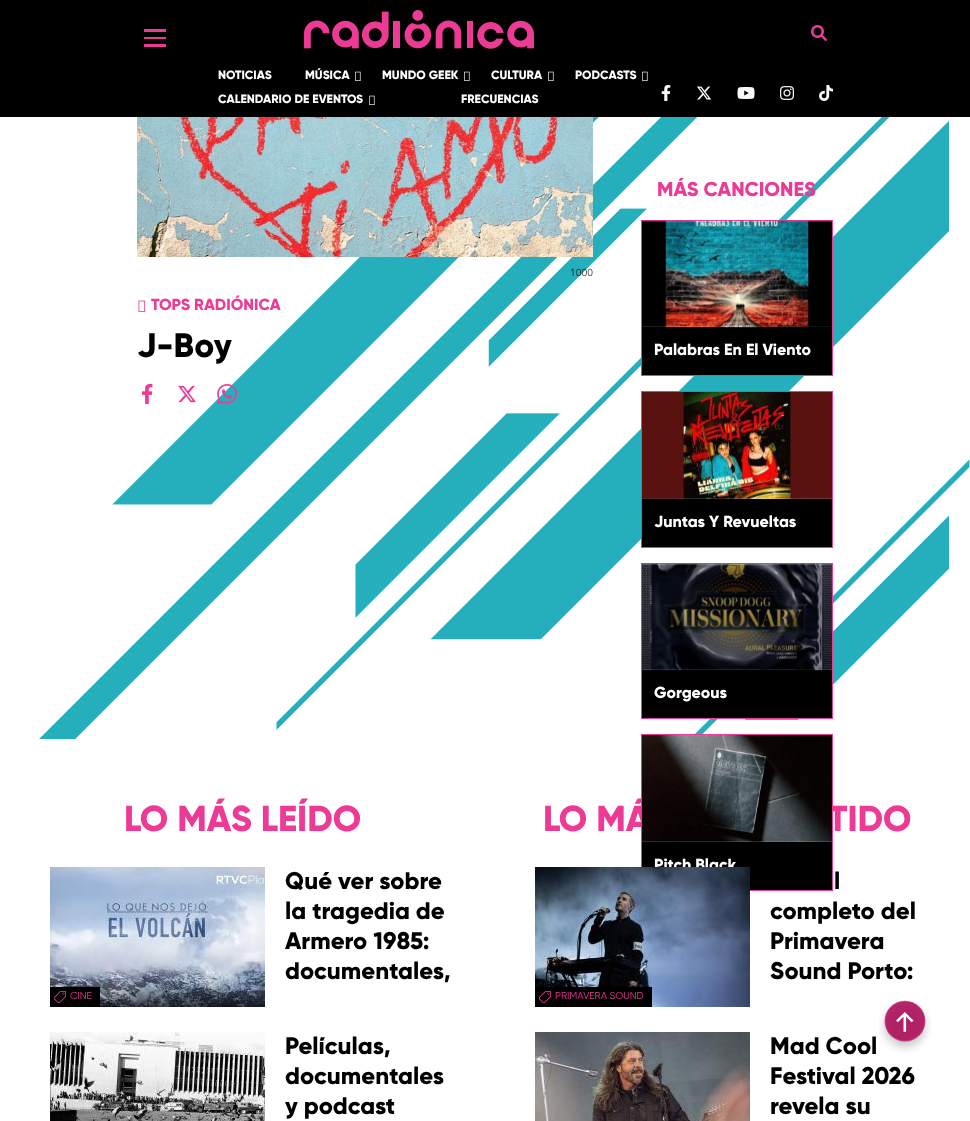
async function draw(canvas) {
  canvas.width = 970
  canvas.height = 1121
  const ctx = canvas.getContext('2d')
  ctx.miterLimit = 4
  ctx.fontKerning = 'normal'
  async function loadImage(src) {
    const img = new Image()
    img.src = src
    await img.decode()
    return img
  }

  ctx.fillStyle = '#fff'
  ctx.fillRect(0, 0, 970, 1121)
  ctx.fillStyle = '#000'
  ctx.fillRect(0, 0, 970, 117)
  ctx.fillStyle = '#ed3a94'
  ctx.fillRect(144, 37, 22, 2)
  ctx.fillRect(144, 29, 22, 3)
  ctx.fillRect(144, 44, 22, 3)
  ctx.drawImage(await loadImage('image0.png'), 811, 25, 16, 16)
  ctx.drawImage(await loadImage('image1.png'), 661, 85, 10, 16)
  ctx.drawImage(await loadImage('image2.png'), 697, 86, 15, 14)
  ctx.drawImage(await loadImage('image3.png'), 737, 87, 18, 12)
  ctx.drawImage(await loadImage('image4.png'), 780, 86, 14, 14)
  ctx.drawImage(await loadImage('image5.png'), 819, 85, 14, 16)
  ctx.drawImage(await loadImage('image6.png'), 304, 10, 230, 39)
  ctx.font = '800 12px Gilroy'
  ctx.fillStyle = '#fff'
  ctx.fillText('NOTICIAS', 218, 79)
  ctx.fillText('MÚSICA', 305, 79)
  ctx.drawImage(await loadImage('image7.png'), 355, 71, 6, 10)
  ctx.fillText('MUNDO GEEK', 382, 79)
  ctx.drawImage(await loadImage('image7.png'), 464, 71, 6, 10)
  ctx.fillText('CULTURA', 491, 79)
  ctx.drawImage(await loadImage('image7.png'), 548, 71, 6, 10)
  ctx.fillText('PODCASTS', 575, 79)
  ctx.drawImage(await loadImage('image7.png'), 642, 71, 6, 10)
  ctx.fillText('CALENDARIO DE EVENTOS', 218, 103)
  ctx.drawImage(await loadImage('image7.png'), 369, 95, 6, 10)
  ctx.fillText('FRECUENCIAS', 461, 103)
  ctx.drawImage(await loadImage('image8.png'), 39, 117, 931, 623)
  ctx.drawImage(await loadImage('image9.png'), 137, 117, 456, 140)
  ctx.font = '300 10px Noto Sans'
  ctx.fillStyle = '#000'
  ctx.fillText('1000', 570, 276)
  ctx.drawImage(await loadImage('image10.png'), 138, 300, 8, 12)
  ctx.font = '800 16px Gilroy'
  ctx.fillStyle = '#ed3a94'
  ctx.fillText('TOPS RADIÓNICA', 151, 310)
  ctx.font = '800 34px Gilroy'
  ctx.fillStyle = '#000'
  ctx.fillText('J-Boy', 137, 357)
  ctx.drawImage(await loadImage('image11.png'), 142, 384, 11, 20)
  ctx.drawImage(await loadImage('image12.png'), 178, 385, 18, 18)
  ctx.drawImage(await loadImage('image13.png'), 217, 384, 20, 20)
  ctx.font = '800 20px Gilroy'
  ctx.fillStyle = '#ed3a94'
  ctx.fillText('MÁS CANCIONES', 657, 196)
  ctx.strokeStyle = '#ed3a94'
  ctx.strokeRect(641.5, 220.5, 191, 155)
  ctx.fillStyle = '#000'
  ctx.fillRect(642, 327, 190, 48)
  ctx.drawImage(await loadImage('image14.png'), 642, 220, 190, 108)
  ctx.font = '800 16px Gilroy'
  ctx.fillStyle = '#fff'
  ctx.fillText('Palabras En El Viento', 654, 355)
  ctx.strokeRect(641.5, 391.5, 191, 156)
  ctx.drawImage(await loadImage('image15.png'), 642, 392, 190, 107)
  ctx.fillStyle = '#000'
  ctx.fillRect(642, 499, 190, 48)
  ctx.fillStyle = '#fff'
  ctx.fillText('Juntas Y Revueltas', 654, 527)
  ctx.strokeRect(641.5, 563.5, 191, 155)
  ctx.fillStyle = '#000'
  ctx.fillRect(642, 670, 190, 48)
  ctx.drawImage(await loadImage('image16.png'), 642, 563, 190, 108)
  ctx.fillStyle = '#fff'
  ctx.fillText('Gorgeous', 654, 698)
  ctx.strokeRect(641.5, 734.5, 191, 156)
  ctx.font = '800 36px Gilroy'
  ctx.fillStyle = '#ed3a94'
  ctx.fillText('LO MÁ', 543, 831)
  ctx.fillText('TIDO', 828, 831)
  ctx.drawImage(await loadImage('image17.png'), 642, 735, 190, 107)
  ctx.fillStyle = '#000'
  ctx.fillRect(642, 842, 190, 48)
  ctx.font = '800 16px Gilroy'
  ctx.fillStyle = '#fff'
  ctx.fillText('Pitch Black', 654, 870)
  ctx.font = '800 36px Gilroy'
  ctx.fillStyle = '#ed3a94'
  ctx.fillText('LO MÁS LEÍDO', 124, 831)
  ctx.font = '800 24px Gilroy'
  ctx.fillStyle = '#000'
  ctx.fillText('Qué ver sobre', 285, 889)
  ctx.fillText('la tragedia de', 285, 919)
  ctx.fillText('Armero 1985:', 285, 949)
  ctx.fillText('documentales,', 285, 979)
  ctx.drawImage(await loadImage('image18.png'), 50, 867, 215, 140)
  ctx.fillRect(50, 987, 50, 20)
  ctx.drawImage(await loadImage('image19.png'), 54, 991, 12, 12)
  ctx.font = '10px Gilroy'
  ctx.fillStyle = '#ed3a94'
  ctx.fillText('CINE', 70, 999)
  ctx.drawImage(await loadImage('image20.png'), 50, 1032, 215, 89)
  ctx.font = '800 24px Gilroy'
  ctx.fillStyle = '#000'
  ctx.fillText('Películas,', 285, 1054)
  ctx.fillText('documentales', 285, 1084)
  ctx.fillText('y podcast', 285, 1114)
  ctx.fillText('l', 834, 889)
  ctx.fillText('completo del', 770, 919)
  ctx.fillText('Primavera', 770, 949)
  ctx.fillText('Sound Porto:', 770, 979)
  ctx.drawImage(await loadImage('image21.png'), 535, 867, 215, 140)
  ctx.fillRect(535, 987, 117, 20)
  ctx.drawImage(await loadImage('image19.png'), 539, 991, 12, 12)
  ctx.font = '10px Gilroy'
  ctx.fillStyle = '#ed3a94'
  ctx.fillText('PRIMAVERA SOUND', 555, 999)
  ctx.drawImage(await loadImage('image22.png'), 535, 1032, 215, 89)
  ctx.font = '800 24px Gilroy'
  ctx.fillStyle = '#000'
  ctx.fillText('Mad Cool', 770, 1054)
  ctx.fillText('Festival 2026', 770, 1084)
  ctx.fillText('revela su', 770, 1114)
  ctx.drawImage(await loadImage('image23.png'), 879, 1000, 52, 52)
}

draw(document.querySelector('canvas'))
